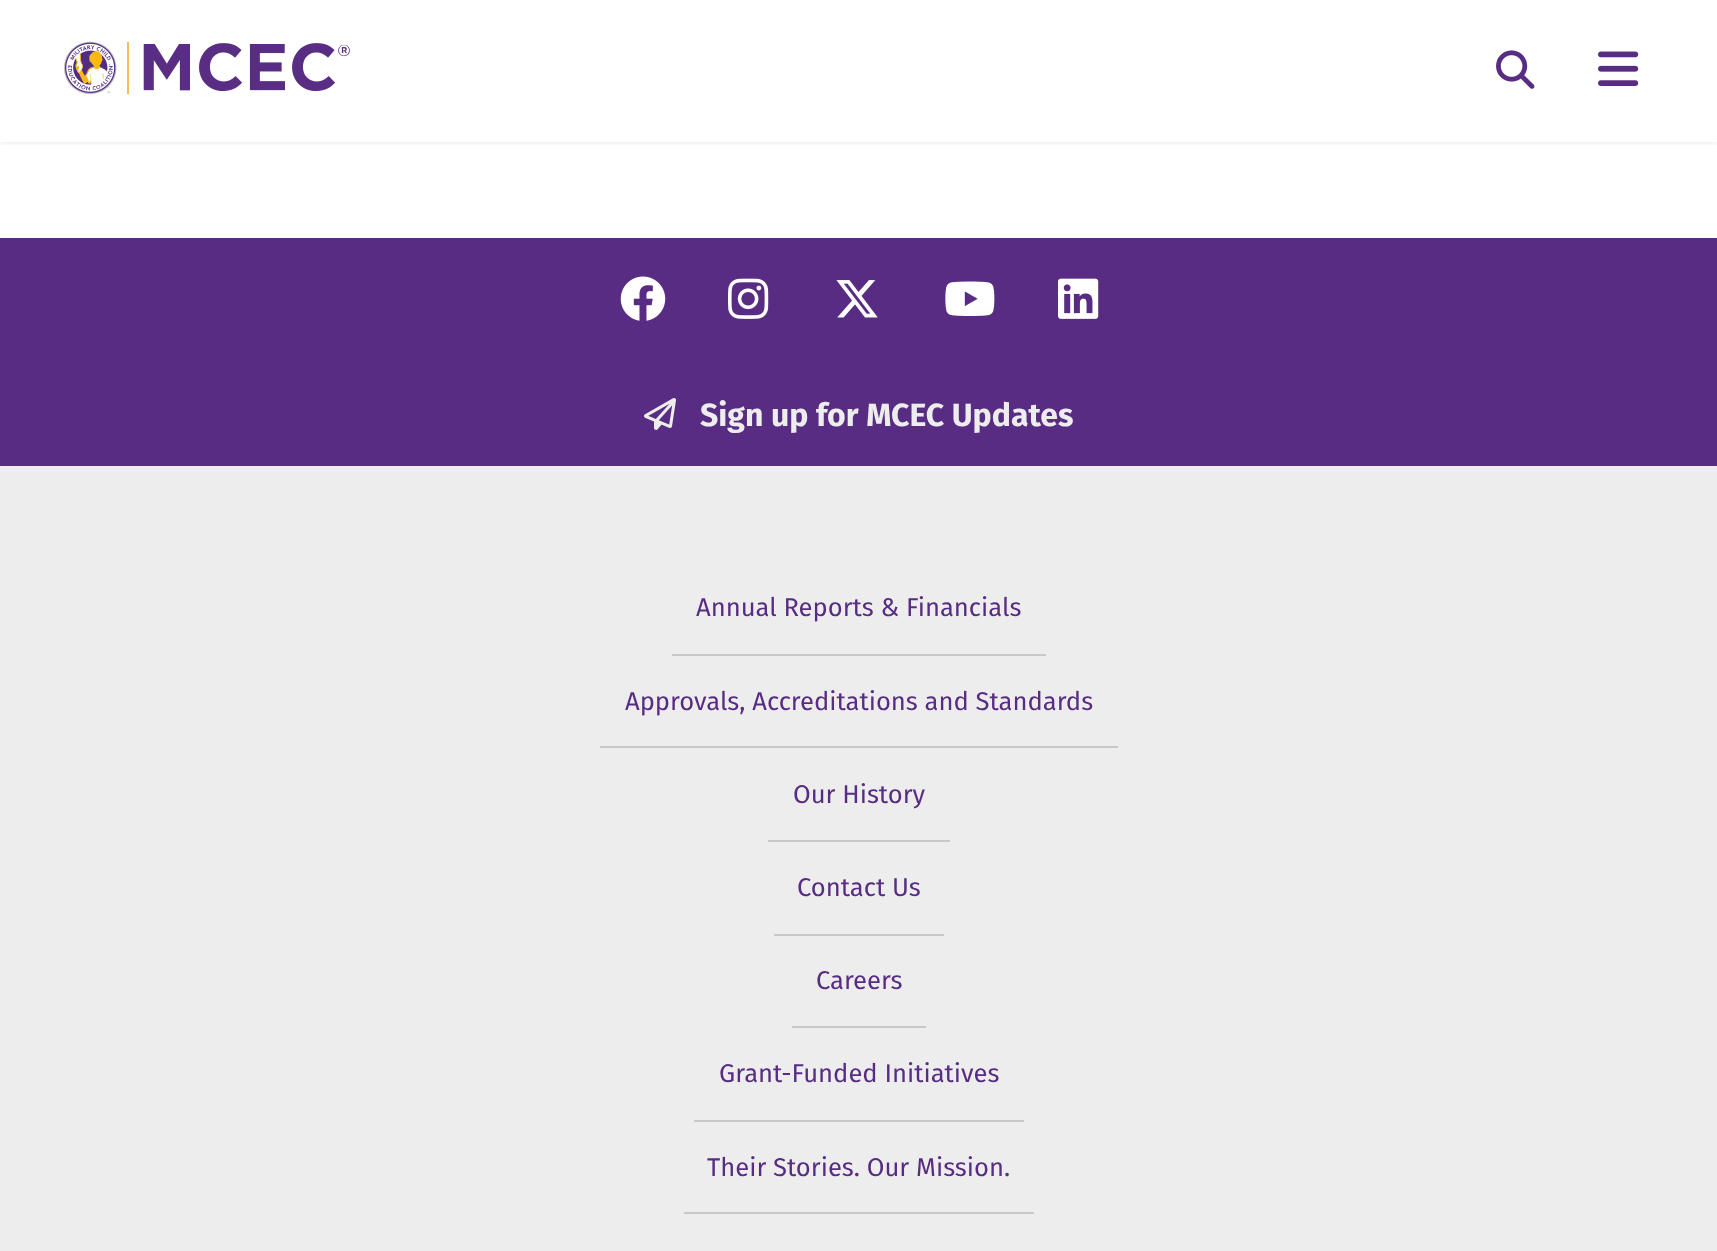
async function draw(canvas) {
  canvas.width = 1717
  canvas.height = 1251
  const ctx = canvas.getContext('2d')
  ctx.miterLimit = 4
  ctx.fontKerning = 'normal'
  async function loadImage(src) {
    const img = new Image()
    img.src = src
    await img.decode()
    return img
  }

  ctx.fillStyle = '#fff'
  ctx.fillRect(0, 0, 1717, 1251)
  ctx.save()
  ctx.beginPath()
  ctx.rect(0, 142, 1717, 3)
  ctx.clip()
  ctx.fillStyle = '#0000001a'
  ctx.filter = 'blur(4px)'
  ctx.beginPath()
  ctx.rect(0, 0, 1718, 142)
  ctx.fill()
  ctx.filter = 'none'
  ctx.restore()
  ctx.drawImage(await loadImage('image0.png'), 64, 41, 286, 54)
  ctx.drawImage(await loadImage('image1.png'), 1496, 50, 39, 39)
  ctx.drawImage(await loadImage('image2.png'), 1598, 51, 41, 35)
  ctx.fillStyle = '#582c83'
  ctx.fillRect(0, 238, 1717, 228)
  ctx.drawImage(await loadImage('image3.png'), 620, 276, 46, 45)
  ctx.drawImage(await loadImage('image4.png'), 728, 278, 41, 41)
  ctx.drawImage(await loadImage('image5.png'), 836, 280, 42, 38)
  ctx.drawImage(await loadImage('image6.png'), 945, 281, 50, 35)
  ctx.drawImage(await loadImage('image7.png'), 1058, 278, 41, 41)
  ctx.drawImage(await loadImage('image8.png'), 644, 398, 32, 32)
  ctx.font = 'bold 32px Fira Sans'
  ctx.fillStyle = '#ededed'
  ctx.fillText('Sign up for MCEC Updates', 700, 426)
  ctx.fillRect(0, 466, 1717, 785)
  ctx.fillStyle = '#c8c8c8'
  ctx.fillRect(672, 654, 374, 2)
  ctx.font = '25.6px Fira Sans'
  ctx.fillStyle = '#582c83'
  ctx.fillText('Annual Reports & Financials', 696, 616)
  ctx.fillStyle = '#c8c8c8'
  ctx.fillRect(600, 746, 518, 2)
  ctx.fillStyle = '#582c83'
  ctx.fillText('Approvals, Accreditations and Standards', 625, 710)
  ctx.fillStyle = '#c8c8c8'
  ctx.fillRect(768, 840, 182, 2)
  ctx.fillStyle = '#582c83'
  ctx.fillText('Our History', 793, 803)
  ctx.fillStyle = '#c8c8c8'
  ctx.fillRect(774, 934, 170, 2)
  ctx.fillStyle = '#582c83'
  ctx.fillText('Contact Us', 797, 896)
  ctx.fillStyle = '#c8c8c8'
  ctx.fillRect(792, 1026, 134, 2)
  ctx.fillStyle = '#582c83'
  ctx.fillText('Careers', 816, 989)
  ctx.fillStyle = '#c8c8c8'
  ctx.fillRect(694, 1120, 330, 2)
  ctx.fillStyle = '#582c83'
  ctx.fillText('Grant-Funded Initiatives', 719, 1082)
  ctx.fillStyle = '#c8c8c8'
  ctx.fillRect(684, 1212, 350, 2)
  ctx.fillStyle = '#582c83'
  ctx.fillText('Their Stories. Our Mission.', 707, 1176)
}

draw(document.querySelector('canvas'))
